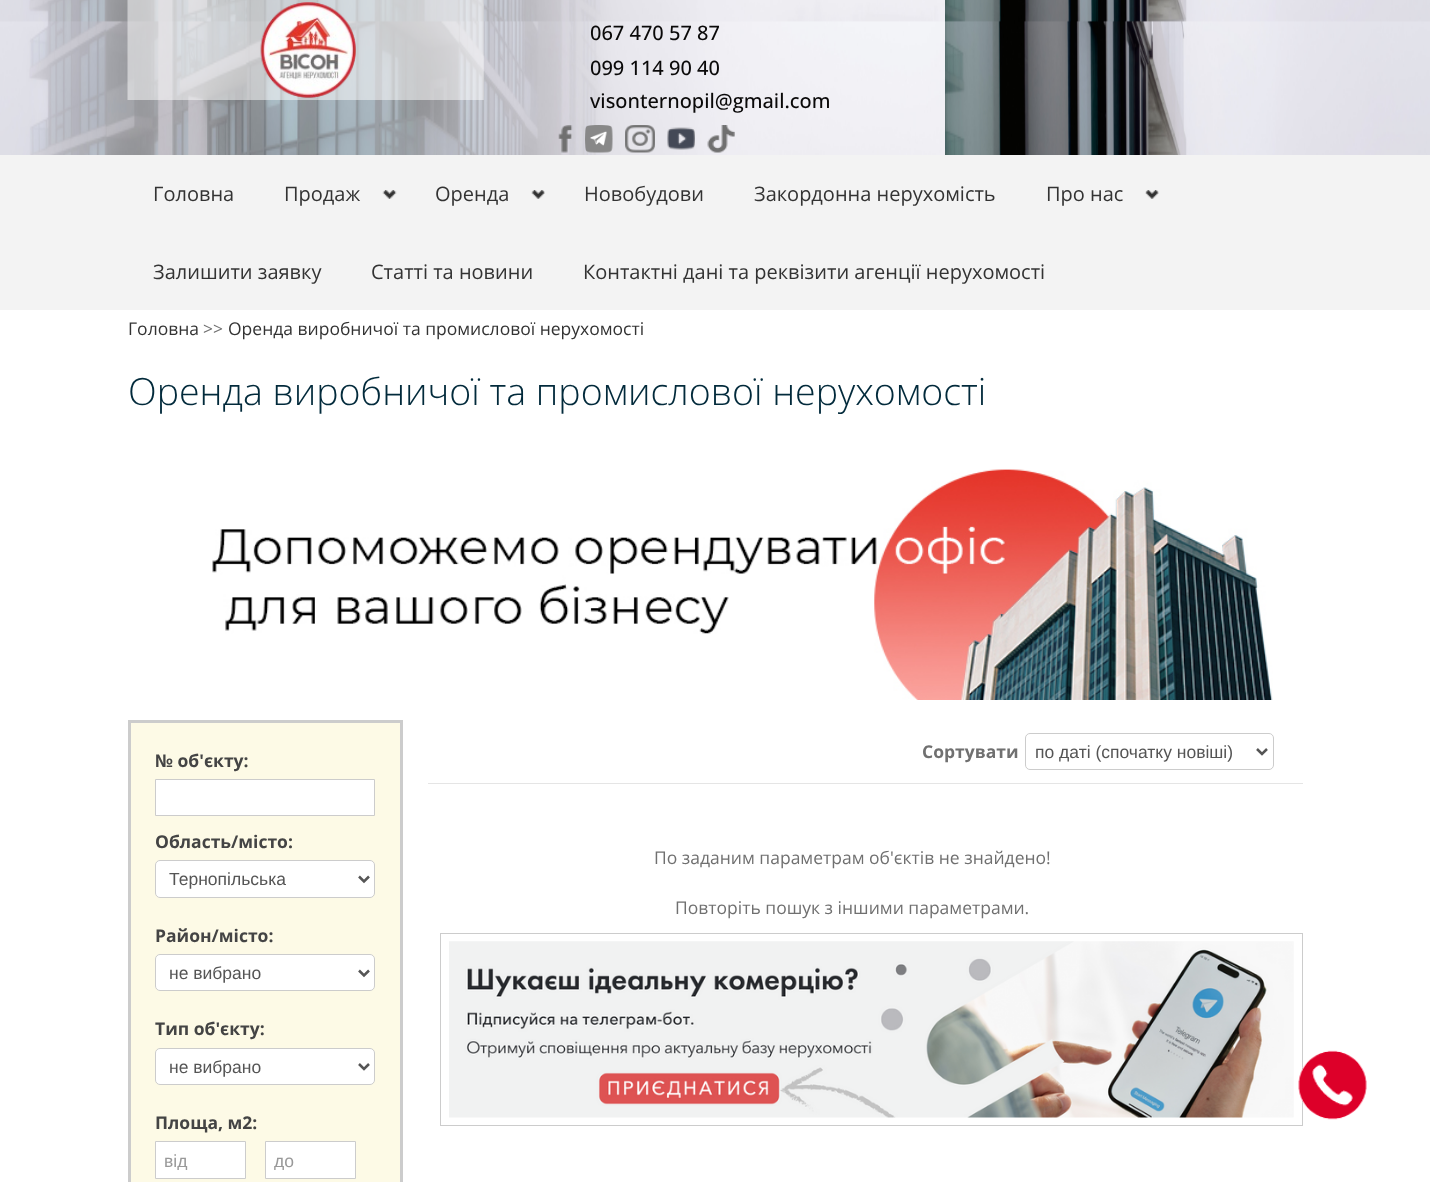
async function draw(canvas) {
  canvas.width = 1430
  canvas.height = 1182
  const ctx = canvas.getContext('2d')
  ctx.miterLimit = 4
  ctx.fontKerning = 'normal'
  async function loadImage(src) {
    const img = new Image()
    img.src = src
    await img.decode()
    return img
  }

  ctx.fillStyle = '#fff'
  ctx.fillRect(0, 0, 1430, 1182)
  ctx.drawImage(await loadImage('image0.png'), 0, 0, 1430, 155)
  ctx.drawImage(await loadImage('image1.png'), 127, 0, 357, 100)
  ctx.font = '500 20px Open Sans'
  ctx.fillStyle = '#0a0909'
  ctx.fillText('067 470 57 87', 590, 40)
  ctx.fillText('099 114 90 40', 590, 75)
  ctx.fillText('visonternopil@gmail.com', 590, 108)
  ctx.drawImage(await loadImage('image2.png'), 558, 125, 15, 28)
  ctx.drawImage(await loadImage('image3.png'), 585, 125, 28, 28)
  ctx.drawImage(await loadImage('image4.png'), 625, 125, 30, 28)
  ctx.drawImage(await loadImage('image5.png'), 667, 127, 28, 23)
  ctx.drawImage(await loadImage('image6.png'), 707, 125, 28, 28)
  ctx.fillStyle = '#f3f3f3'
  ctx.fillRect(0, 155, 1430, 155)
  ctx.font = '20px Open Sans'
  ctx.fillStyle = '#333'
  ctx.fillText('Головна', 153, 201)
  ctx.drawImage(await loadImage('image7.png'), 382, 190, 15, 9)
  ctx.fillText('Продаж', 284, 201)
  ctx.drawImage(await loadImage('image8.png'), 531, 190, 14, 9)
  ctx.fillText('Оренда', 435, 201)
  ctx.fillText('Новобудови', 584, 201)
  ctx.fillText('Закордонна нерухомість', 754, 201)
  ctx.drawImage(await loadImage('image9.png'), 1145, 190, 14, 9)
  ctx.fillText('Про нас', 1046, 201)
  ctx.fillText('Залишити заявку', 153, 279)
  ctx.fillText('Статті та новини', 371, 279)
  ctx.fillText('Контактні дані та реквізити агенції нерухомості', 583, 279)
  ctx.font = '17.5px Open Sans'
  ctx.fillText('Головна', 128, 335)
  ctx.fillStyle = '#707070'
  ctx.fillText('>>', 203, 335)
  ctx.fillStyle = '#333'
  ctx.fillText('Оренда виробничої та промислової нерухомості', 228, 335)
  ctx.font = '300 37.5px Open Sans'
  ctx.fillStyle = '#022a3b'
  ctx.fillText('Оренда виробничої та промислової нерухомості', 128, 405)
  ctx.drawImage(await loadImage('image10.png'), 212, 469, 1061, 231)
  ctx.fillStyle = '#fdfae6'
  ctx.beginPath()
  ctx.rect(129.5, 721.5, 272, 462)
  ctx.fill()
  ctx.strokeStyle = '#ccc'
  ctx.lineWidth = 3
  ctx.stroke()
  ctx.font = 'bold 17.5px Open Sans'
  ctx.fillStyle = '#444'
  ctx.fillText('№ об\'єкту:', 155, 767)
  ctx.fillStyle = '#fff'
  ctx.beginPath()
  ctx.rect(155.5, 779.5, 219, 36)
  ctx.fill()
  ctx.lineWidth = 1
  ctx.stroke()
  ctx.fillStyle = '#444'
  ctx.fillText('Область/місто:', 155, 848)
  ctx.fillStyle = '#fff'
  ctx.beginPath()
  ctx.roundRect(155.5, 860.5, 219, 37, 4.5)
  ctx.fill()
  ctx.stroke()
  ctx.beginPath()
  ctx.moveTo(359, 876.5)
  ctx.lineTo(364, 881.5)
  ctx.lineTo(369, 876.5)
  ctx.strokeStyle = '#555'
  ctx.lineWidth = 2.5
  ctx.stroke()
  ctx.font = '17.5px Liberation Sans'
  ctx.fillStyle = '#555'
  ctx.fillText('Тернопільська', 169, 885)
  ctx.font = 'bold 17.5px Open Sans'
  ctx.fillStyle = '#444'
  ctx.fillText('Район/місто:', 155, 942)
  ctx.fillStyle = '#fff'
  ctx.beginPath()
  ctx.roundRect(155.5, 954.5, 219, 36, 4.5)
  ctx.fill()
  ctx.strokeStyle = '#ccc'
  ctx.lineWidth = 1
  ctx.stroke()
  ctx.beginPath()
  ctx.moveTo(359, 970.5)
  ctx.lineTo(364, 975.5)
  ctx.lineTo(369, 970.5)
  ctx.strokeStyle = '#555'
  ctx.lineWidth = 2.5
  ctx.stroke()
  ctx.font = '17.5px Liberation Sans'
  ctx.fillStyle = '#555'
  ctx.fillText('не вибрано', 169, 979)
  ctx.font = 'bold 17.5px Open Sans'
  ctx.fillStyle = '#444'
  ctx.fillText('Тип об\'єкту:', 155, 1035)
  ctx.fillStyle = '#fff'
  ctx.beginPath()
  ctx.roundRect(155.5, 1048.5, 219, 36, 4.5)
  ctx.fill()
  ctx.strokeStyle = '#ccc'
  ctx.lineWidth = 1
  ctx.stroke()
  ctx.beginPath()
  ctx.moveTo(359, 1064)
  ctx.lineTo(364, 1069)
  ctx.lineTo(369, 1064)
  ctx.strokeStyle = '#555'
  ctx.lineWidth = 2.5
  ctx.stroke()
  ctx.font = '17.5px Liberation Sans'
  ctx.fillStyle = '#555'
  ctx.fillText('не вибрано', 169, 1073)
  ctx.font = 'bold 17.5px Open Sans'
  ctx.fillStyle = '#444'
  ctx.fillText('Площа, м2:', 155, 1129)
  ctx.fillStyle = '#fff'
  ctx.beginPath()
  ctx.rect(155.5, 1141.5, 90, 37)
  ctx.fill()
  ctx.strokeStyle = '#ccc'
  ctx.lineWidth = 1
  ctx.stroke()
  ctx.save()
  ctx.beginPath()
  ctx.rect(164, 1150, 74, 20)
  ctx.clip()
  ctx.font = '17.5px Liberation Sans'
  ctx.fillStyle = '#999'
  ctx.fillText('від', 164, 1167)
  ctx.restore()
  ctx.beginPath()
  ctx.rect(265.5, 1141.5, 90, 37)
  ctx.fill()
  ctx.stroke()
  ctx.save()
  ctx.beginPath()
  ctx.rect(274, 1150, 74, 20)
  ctx.clip()
  ctx.font = '17.5px Liberation Sans'
  ctx.fillStyle = '#999'
  ctx.fillText('до', 274, 1167)
  ctx.restore()
  ctx.fillStyle = '#0000001a'
  ctx.filter = 'blur(0.5px)'
  ctx.beginPath()
  ctx.rect(428, 721, 875, 63)
  ctx.fill()
  ctx.filter = 'none'
  ctx.fillStyle = '#fff'
  ctx.fillRect(428, 720, 875, 63)
  ctx.fillStyle = '#707070'
  ctx.fillText('Сортувати', 922, 758)
  ctx.beginPath()
  ctx.roundRect(1025.5, 733.5, 248, 36, 4.5)
  ctx.stroke()
  ctx.beginPath()
  ctx.moveTo(1257, 749)
  ctx.lineTo(1262, 754)
  ctx.lineTo(1267, 749)
  ctx.strokeStyle = '#555'
  ctx.lineWidth = 2.5
  ctx.stroke()
  ctx.font = '17.5px Liberation Sans'
  ctx.fillStyle = '#555'
  ctx.fillText('по даті (спочатку новіші)', 1035, 758)
  ctx.font = '17.5px Open Sans'
  ctx.fillStyle = '#707070'
  ctx.fillText('По заданим параметрам об\'єктів не знайдено!', 654, 864)
  ctx.fillText('Повторіть пошук з іншими параметрами.', 675, 914)
  ctx.strokeStyle = '#ccc'
  ctx.lineWidth = 1
  ctx.strokeRect(440.5, 933.5, 862, 192)
  ctx.drawImage(await loadImage('image11.png'), 449, 941, 845, 177)
  ctx.drawImage(await loadImage('image12.png'), 1298, 1050, 69, 70)
}

draw(document.querySelector('canvas'))
